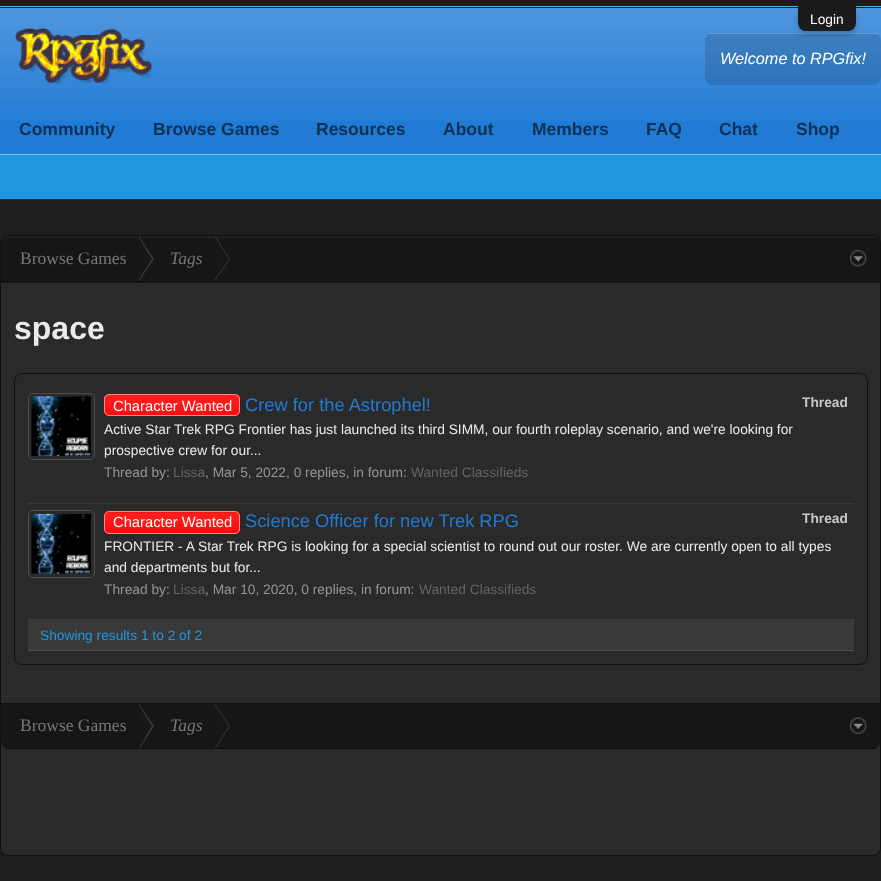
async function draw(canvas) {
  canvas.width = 881
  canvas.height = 881
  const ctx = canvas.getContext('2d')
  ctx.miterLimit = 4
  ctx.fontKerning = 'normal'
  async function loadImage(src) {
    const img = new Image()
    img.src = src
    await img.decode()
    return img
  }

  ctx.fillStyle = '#1e1e1e'
  ctx.fillRect(0, 0, 881, 881)
  ctx.fillStyle = '#1b1b1b'
  ctx.fillRect(0, 0, 881, 8)
  ctx.fillStyle = '#3cb2e3'
  ctx.fillRect(0, 6, 881, 1)
  ctx.fillStyle = '#217bd5'
  ctx.fillRect(0, 8, 881, 146)
  ctx.drawImage(await loadImage('image0.png'), 0, 8, 881, 113)
  ctx.fillStyle = '#00000021'
  ctx.beginPath()
  ctx.roundRect(705, 33, 176, 52, 8)
  ctx.fill()
  ctx.fillStyle = '#ffffff33'
  ctx.fillRect(709, 33, 169, 1)
  ctx.fillStyle = '#00000033'
  ctx.filter = 'blur(2.5px)'
  ctx.beginPath()
  ctx.roundRect(798, 9, 58, 25, 8)
  ctx.fill()
  ctx.filter = 'none'
  ctx.fillStyle = '#1b1b1b'
  ctx.beginPath()
  ctx.roundRect(798, 6, 58, 25, [0, 0, 8, 8])
  ctx.fill()
  ctx.font = '13.75px Liberation Sans'
  ctx.fillStyle = '#fff'
  ctx.fillText('Login', 810, 24)
  ctx.drawImage(await loadImage('image1.png'), 15, 28, 138, 56)
  ctx.font = 'italic 16.25px Liberation Sans'
  ctx.fillText('Welcome to RPGfix!', 720, 64)
  ctx.font = 'bold 17.5px Liberation Sans'
  ctx.fillStyle = '#0d3155'
  ctx.fillText('Community', 19, 135)
  ctx.fillText('Browse Games', 153, 135)
  ctx.fillText('Resources', 316, 135)
  ctx.fillText('About', 443, 135)
  ctx.fillText('Members', 532, 135)
  ctx.fillText('FAQ', 646, 135)
  ctx.fillText('Chat', 719, 135)
  ctx.fillText('Shop', 796, 135)
  ctx.fillStyle = '#2096e1'
  ctx.fillRect(0, 155, 881, 44)
  ctx.fillStyle = '#7cc1ec'
  ctx.fillRect(0, 154, 881, 1)
  ctx.fillStyle = '#032a46'
  ctx.fillRect(0, 199, 881, 1)
  ctx.fillStyle = '#2a2a2a'
  ctx.beginPath()
  ctx.roundRect(0.5, 235.5, 880, 620, 7.5)
  ctx.fill()
  ctx.strokeStyle = '#0f0f0f'
  ctx.stroke()
  ctx.fillStyle = '#161616'
  ctx.beginPath()
  ctx.roundRect(1, 236, 879, 47, [8, 8, 0, 0])
  ctx.fill()
  ctx.drawImage(await loadImage('image2.png'), 5, 236, 872, 2)
  ctx.fillStyle = '#0f0f0f'
  ctx.fillRect(1, 281, 879, 1)
  ctx.font = '17.5px Liberation Serif'
  ctx.fillStyle = '#777'
  ctx.fillText('Browse Games', 20, 264)
  ctx.fillStyle = '#3a3a3a'
  ctx.beginPath()
  ctx.moveTo(139, 281)
  ctx.lineTo(139, 236)
  ctx.lineTo(154, 259)
  ctx.closePath()
  ctx.fill()
  ctx.fillStyle = '#171717'
  ctx.beginPath()
  ctx.moveTo(138, 281)
  ctx.lineTo(138, 236)
  ctx.lineTo(152, 259)
  ctx.closePath()
  ctx.fill()
  ctx.font = 'italic 17.5px Liberation Serif'
  ctx.fillStyle = '#777'
  ctx.fillText('Tags', 170, 264)
  ctx.fillStyle = '#3a3a3a'
  ctx.beginPath()
  ctx.moveTo(215, 281)
  ctx.lineTo(215, 236)
  ctx.lineTo(230, 259)
  ctx.closePath()
  ctx.fill()
  ctx.fillStyle = '#171717'
  ctx.beginPath()
  ctx.moveTo(214, 281)
  ctx.lineTo(214, 236)
  ctx.lineTo(229, 259)
  ctx.closePath()
  ctx.fill()
  ctx.drawImage(await loadImage('image3.png'), 850, 250, 17, 17)
  ctx.font = 'bold 32px Liberation Sans'
  ctx.fillStyle = '#ebebeb'
  ctx.fillText('space', 14, 339)
  ctx.beginPath()
  ctx.roundRect(14.5, 373.5, 853, 291, 7.5)
  ctx.stroke()
  ctx.fillStyle = '#393939'
  ctx.fillRect(28, 503, 826, 1)
  ctx.beginPath()
  ctx.roundRect(28.5, 393.5, 66, 66, 4.5)
  ctx.strokeStyle = '#4e4e4e'
  ctx.stroke()
  ctx.drawImage(await loadImage('image4.png'), 31, 396, 60, 61)
  ctx.fillStyle = '#f00'
  ctx.beginPath()
  ctx.roundRect(104, 394, 136, 22, 5)
  ctx.fill()
  ctx.drawImage(await loadImage('image5.png'), 104, 395, 136, 21)
  ctx.beginPath()
  ctx.roundRect(104.5, 394.5, 135, 21, 4.5)
  ctx.strokeStyle = '#f88'
  ctx.stroke()
  ctx.font = '14.75px Liberation Sans'
  ctx.fillStyle = '#fff'
  ctx.fillText('Character Wanted', 113, 411)
  ctx.font = '18.3px Liberation Sans'
  ctx.fillStyle = '#217bd5'
  ctx.fillText('Crew for the Astrophel!', 245, 411)
  ctx.font = 'bold 13.75px Liberation Sans'
  ctx.fillStyle = '#c8c8c8'
  ctx.fillText('Thread', 802, 407)
  ctx.font = '13.75px Liberation Sans'
  ctx.fillStyle = '#ebebeb'
  ctx.fillText('Active Star Trek RPG Frontier has just launched its third SIMM, our fourth roleplay scenario, and we\'re looking for', 104, 434)
  ctx.fillText('prospective crew for our...', 104, 455)
  ctx.fillStyle = '#969696'
  ctx.fillText('Thread by:', 104, 477)
  ctx.fillStyle = '#646464'
  ctx.fillText('Lissa', 173, 477)
  ctx.fillStyle = '#969696'
  ctx.fillText(', Mar 5, 2022, 0 replies, in forum:', 205, 477)
  ctx.fillStyle = '#646464'
  ctx.fillText('Wanted Classifieds', 411, 477)
  ctx.fillStyle = '#393939'
  ctx.fillRect(28, 619, 826, 31)
  ctx.beginPath()
  ctx.roundRect(28.5, 510.5, 66, 67, 4.5)
  ctx.strokeStyle = '#4e4e4e'
  ctx.stroke()
  ctx.drawImage(await loadImage('image6.png'), 31, 513, 60, 61)
  ctx.fillStyle = '#f00'
  ctx.beginPath()
  ctx.roundRect(104, 511, 136, 23, 5)
  ctx.fill()
  ctx.drawImage(await loadImage('image7.png'), 104, 512, 136, 21)
  ctx.beginPath()
  ctx.roundRect(104.5, 511.5, 135, 22, 4.5)
  ctx.strokeStyle = '#f88'
  ctx.stroke()
  ctx.font = '14.75px Liberation Sans'
  ctx.fillStyle = '#fff'
  ctx.fillText('Character Wanted', 113, 527)
  ctx.font = '18.3px Liberation Sans'
  ctx.fillStyle = '#217bd5'
  ctx.fillText('Science Officer for new Trek RPG', 245, 527)
  ctx.font = 'bold 13.75px Liberation Sans'
  ctx.fillStyle = '#c8c8c8'
  ctx.fillText('Thread', 802, 523)
  ctx.font = '13.75px Liberation Sans'
  ctx.fillStyle = '#ebebeb'
  ctx.fillText('FRONTIER - A Star Trek RPG is looking for a special scientist to round out our roster. We are currently open to all types', 104, 551)
  ctx.fillText('and departments but for...', 104, 572)
  ctx.fillStyle = '#969696'
  ctx.fillText('Thread by:', 104, 594)
  ctx.fillStyle = '#646464'
  ctx.fillText('Lissa', 173, 594)
  ctx.fillStyle = '#969696'
  ctx.fillText(', Mar 10, 2020, 0 replies, in forum:', 205, 594)
  ctx.fillStyle = '#646464'
  ctx.fillText('Wanted Classifieds', 419, 594)
  ctx.fillStyle = '#4e4e4e'
  ctx.fillRect(28, 650, 826, 1)
  ctx.fillStyle = '#2096e1'
  ctx.fillText('Showing results 1 to 2 of 2', 40, 640)
  ctx.fillStyle = '#161616'
  ctx.beginPath()
  ctx.roundRect(1, 703, 879, 46, [0, 0, 8, 8])
  ctx.fill()
  ctx.fillStyle = '#0f0f0f'
  ctx.fillRect(5, 748, 871, 1)
  ctx.fillRect(1, 703, 879, 1)
  ctx.font = '17.5px Liberation Serif'
  ctx.fillStyle = '#777'
  ctx.fillText('Browse Games', 20, 731)
  ctx.fillStyle = '#3a3a3a'
  ctx.beginPath()
  ctx.moveTo(140, 748)
  ctx.lineTo(154, 726)
  ctx.lineTo(139, 704)
  ctx.lineTo(139, 748)
  ctx.closePath()
  ctx.fill()
  ctx.fillStyle = '#171717'
  ctx.beginPath()
  ctx.moveTo(139, 748)
  ctx.lineTo(152, 726)
  ctx.lineTo(138, 704)
  ctx.lineTo(138, 748)
  ctx.closePath()
  ctx.fill()
  ctx.font = 'italic 17.5px Liberation Serif'
  ctx.fillStyle = '#777'
  ctx.fillText('Tags', 170, 731)
  ctx.fillStyle = '#3a3a3a'
  ctx.beginPath()
  ctx.moveTo(216, 748)
  ctx.lineTo(230, 726)
  ctx.lineTo(215, 704)
  ctx.lineTo(215, 748)
  ctx.closePath()
  ctx.fill()
  ctx.fillStyle = '#171717'
  ctx.beginPath()
  ctx.moveTo(215, 748)
  ctx.lineTo(229, 726)
  ctx.lineTo(214, 704)
  ctx.lineTo(214, 748)
  ctx.closePath()
  ctx.fill()
  ctx.drawImage(await loadImage('image8.png'), 850, 717, 17, 17)
}

draw(document.querySelector('canvas'))
